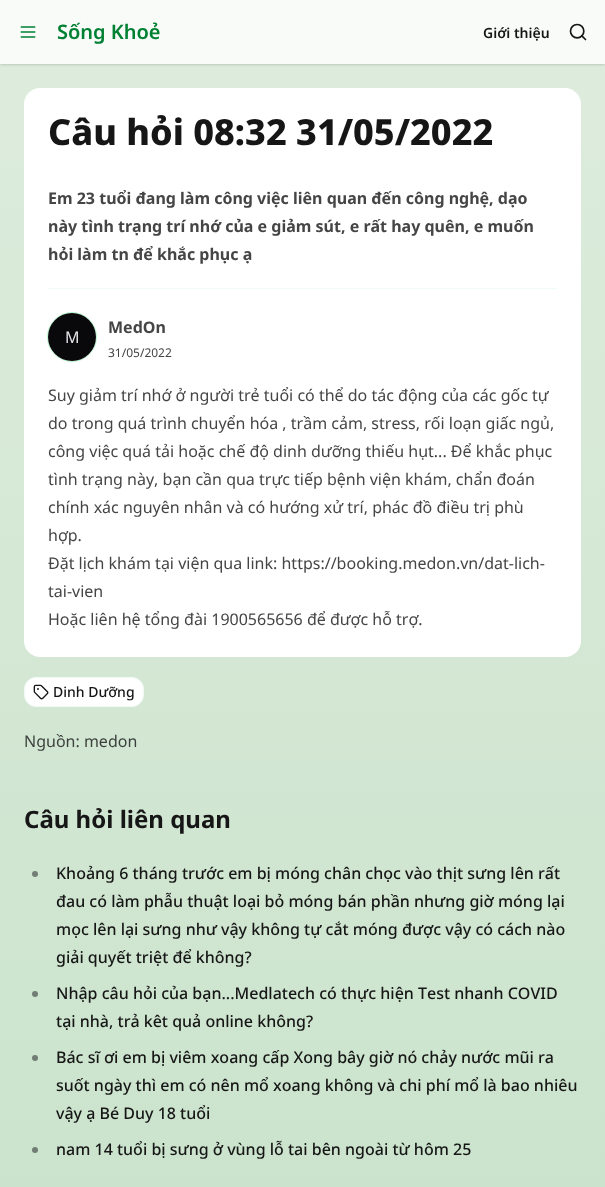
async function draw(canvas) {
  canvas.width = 605
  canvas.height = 1187
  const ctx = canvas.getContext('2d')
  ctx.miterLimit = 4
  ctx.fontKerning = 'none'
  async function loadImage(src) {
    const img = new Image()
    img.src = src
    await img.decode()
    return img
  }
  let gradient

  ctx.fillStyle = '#fff'
  ctx.fillRect(0, 0, 605, 1187)
  gradient = ctx.createLinearGradient(302, 0, 303, 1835)
  gradient.addColorStop(0, '#deecdd')
  gradient.addColorStop(1, '#c1dfc4')
  ctx.fillStyle = gradient
  ctx.fillRect(0, 64, 605, 1123)
  ctx.fillStyle = '#0000001a'
  ctx.filter = 'blur(1px)'
  ctx.beginPath()
  ctx.rect(1, 2, 603, 62)
  ctx.fill()
  ctx.filter = 'none'
  ctx.filter = 'blur(1.5px)'
  ctx.beginPath()
  ctx.rect(0, 1, 605, 64)
  ctx.fill()
  ctx.filter = 'none'
  ctx.fillStyle = '#f8fbf8'
  ctx.fillRect(0, 0, 605, 64)
  ctx.drawImage(await loadImage('image0.png'), 20, 26, 16, 12)
  ctx.font = '600 20px Noto Sans'
  ctx.fillStyle = '#008033'
  ctx.fillText('Sống Khoẻ', 57, 39)
  ctx.font = '600 14px Noto Sans'
  ctx.fillStyle = '#161616'
  ctx.fillText('Giới thiệu', 483, 38)
  ctx.drawImage(await loadImage('image1.png'), 569, 23, 18, 18)
  ctx.fillStyle = '#fff'
  ctx.beginPath()
  ctx.roundRect(24, 88, 557, 569, 16)
  ctx.fill()
  ctx.font = '800 36px Noto Sans'
  ctx.fillStyle = '#161616'
  ctx.fillText('Câu hỏi 08:32 31/05/2022', 48, 145)
  ctx.font = 'bold 16px Noto Sans'
  ctx.fillStyle = '#454545'
  ctx.fillText('Em 23 tuổi đang làm công việc liên quan đến công nghệ, dạo', 48, 204)
  ctx.fillText('này tình trạng trí nhớ của e giảm sút, e rất hay quên, e muốn', 48, 232)
  ctx.fillText('hỏi làm tn để khắc phục ạ', 48, 260)
  ctx.fillStyle = '#effcf3'
  ctx.fillRect(48, 288, 509, 1)
  ctx.beginPath()
  ctx.arc(72, 337, 24.5, 0, 2 * Math.PI)
  ctx.strokeStyle = '#b7f6cd'
  ctx.stroke()
  ctx.fillStyle = '#09090b'
  ctx.beginPath()
  ctx.arc(72, 337, 24, 0, 2 * Math.PI)
  ctx.fill()
  ctx.font = '16px Noto Sans'
  ctx.fillStyle = '#e4e4e7'
  ctx.fillText('M', 65, 343)
  ctx.font = 'bold 16px Noto Sans'
  ctx.fillStyle = '#454545'
  ctx.fillText('MedOn', 108, 333)
  ctx.font = '12px Noto Sans'
  ctx.fillText('31/05/2022', 108, 357)
  ctx.font = '16px Noto Sans'
  ctx.fillText('Suy giảm trí nhớ ở người trẻ tuổi có thể do tác động của các gốc tự', 48, 401)
  ctx.fillText('do trong quá trình chuyển hóa , trầm cảm, stress, rối loạn giấc ngủ,', 48, 429)
  ctx.fillText('công việc quá tải hoặc chế độ dinh dưỡng thiếu hụt... Để khắc phục', 48, 457)
  ctx.fillText('tình trạng này, bạn cần qua trực tiếp bệnh viện khám, chẩn đoán', 48, 485)
  ctx.fillText('chính xác nguyên nhân và có hướng xử trí, phác đồ điều trị phù', 48, 513)
  ctx.fillText('hợp.', 48, 541)
  ctx.fillText('Đặt lịch khám tại viện qua link: https://booking.medon.vn/dat-lich-', 48, 569)
  ctx.fillText('tai-vien', 48, 597)
  ctx.fillText('Hoặc liên hệ tổng đài 1900565656 để được hỗ trợ.', 48, 625)
  ctx.fillStyle = '#fff'
  ctx.beginPath()
  ctx.roundRect(24.5, 677.5, 119, 29, 11.5)
  ctx.fill()
  ctx.strokeStyle = '#effcf3'
  ctx.stroke()
  ctx.drawImage(await loadImage('image2.png'), 33, 684, 16, 16)
  ctx.font = '500 14px Noto Sans'
  ctx.fillStyle = '#161616'
  ctx.fillText('Dinh Dưỡng', 53, 697)
  ctx.font = '16px Noto Sans'
  ctx.fillStyle = '#3c403c'
  ctx.fillText('Nguồn: medon', 24, 747)
  ctx.font = 'bold 24px Noto Sans'
  ctx.fillStyle = '#161616'
  ctx.fillText('Câu hỏi liên quan', 24, 828)
  ctx.fillStyle = '#737e74'
  ctx.beginPath()
  ctx.arc(35, 874, 3, 0, 2 * Math.PI)
  ctx.fill()
  ctx.font = '500 16px Noto Sans'
  ctx.fillStyle = '#161616'
  ctx.fillText('Khoảng 6 tháng trước em bị móng chân chọc vào thịt sưng lên rất', 56, 879)
  ctx.fillText('đau có làm phẫu thuật loại bỏ móng bán phần nhưng giờ móng lại', 56, 907)
  ctx.fillText('mọc lên lại sưng như vậy không tự cắt móng được vậy có cách nào', 56, 935)
  ctx.fillText('giải quyết triệt để không?', 56, 963)
  ctx.fillStyle = '#727e73'
  ctx.beginPath()
  ctx.arc(35, 994, 3, 0, 2 * Math.PI)
  ctx.fill()
  ctx.fillStyle = '#161616'
  ctx.fillText('Nhập câu hỏi của bạn...Medlatech có thực hiện Test nhanh COVID', 56, 999)
  ctx.fillText('tại nhà, trả kêt quả online không?', 56, 1027)
  ctx.fillStyle = '#727d73'
  ctx.beginPath()
  ctx.arc(35, 1058, 3, 0, 2 * Math.PI)
  ctx.fill()
  ctx.fillStyle = '#161616'
  ctx.fillText('Bác sĩ ơi em bị viêm xoang cấp Xong bây giờ nó chảy nước mũi ra', 56, 1063)
  ctx.fillText('suốt ngày thì em có nên mổ xoang không và chi phí mổ là bao nhiêu', 56, 1091)
  ctx.fillText('vậy ạ Bé Duy 18 tuổi', 56, 1119)
  ctx.fillStyle = '#717d72'
  ctx.beginPath()
  ctx.arc(35, 1150, 3, 0, 2 * Math.PI)
  ctx.fill()
  ctx.fillStyle = '#161616'
  ctx.fillText('nam 14 tuổi bị sưng ở vùng lỗ tai bên ngoài từ hôm 25', 56, 1155)
}

draw(document.querySelector('canvas'))
